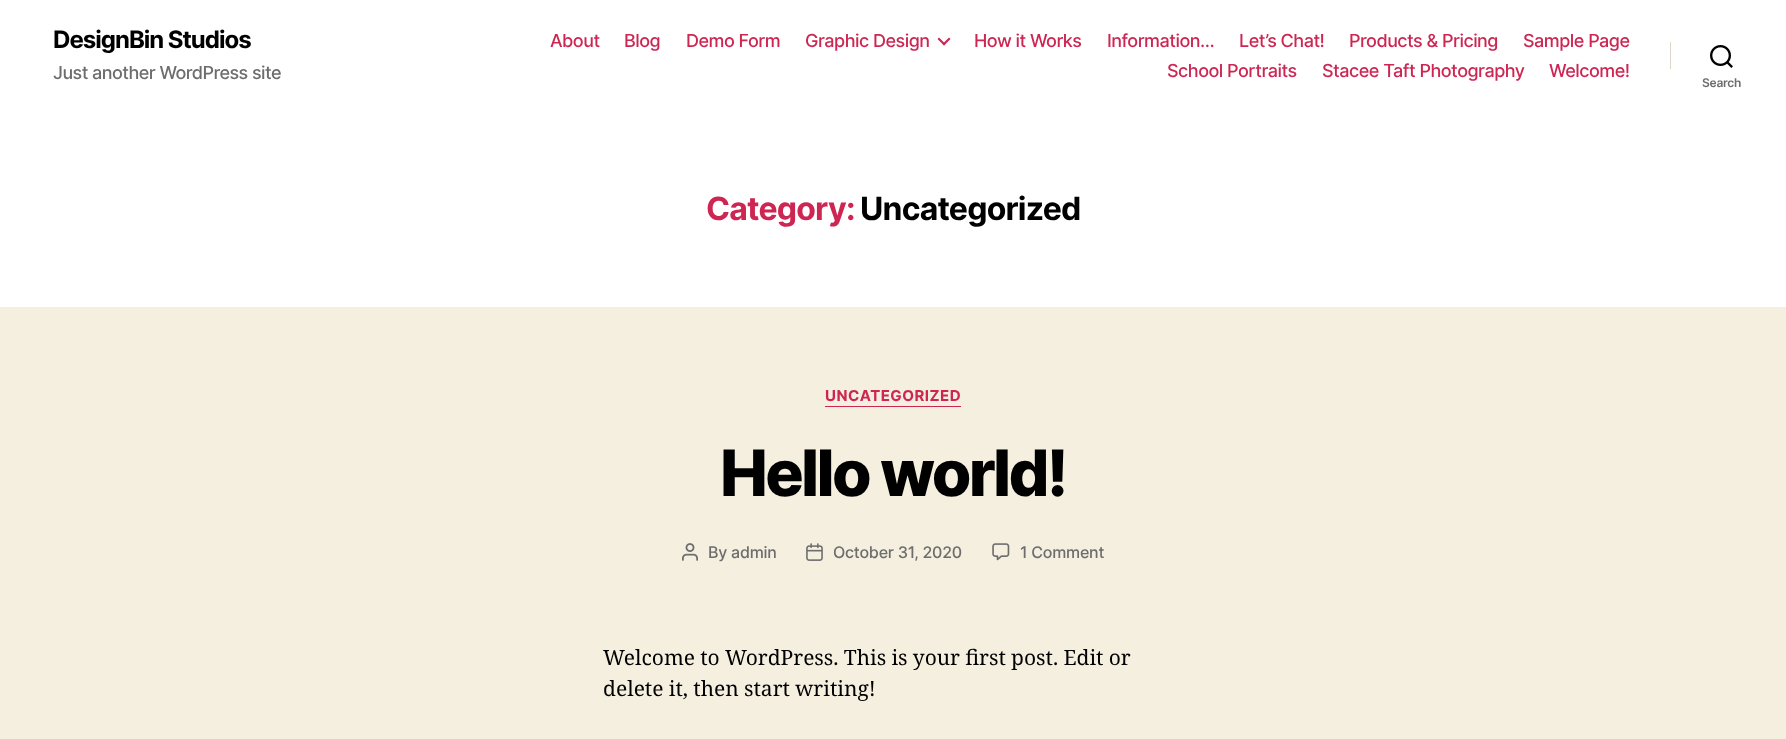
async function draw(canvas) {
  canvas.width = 1786
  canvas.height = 739
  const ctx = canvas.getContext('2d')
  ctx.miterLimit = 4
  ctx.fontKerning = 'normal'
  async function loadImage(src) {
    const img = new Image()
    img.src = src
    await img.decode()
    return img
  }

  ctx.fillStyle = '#f5efe0'
  ctx.fillRect(0, 0, 1786, 739)
  ctx.fillStyle = '#fff'
  ctx.fillRect(0, 0, 1786, 307)
  ctx.letterSpacing = '-1px'
  ctx.font = 'bold 24px Inter'
  ctx.fillStyle = '#000'
  ctx.fillText('DesignBin Studios', 53, 48)
  ctx.letterSpacing = '-0.55px'
  ctx.font = '500 18px Inter'
  ctx.fillStyle = '#6d6d6d'
  ctx.fillText('Just another WordPress site', 53, 79)
  ctx.letterSpacing = '-0.5px'
  ctx.fillStyle = '#cd2653'
  ctx.fillText('About', 550, 47)
  ctx.fillText('Blog', 624, 47)
  ctx.fillText('Demo Form', 686, 47)
  ctx.fillText('Graphic Design', 805, 47)
  ctx.beginPath()
  ctx.moveTo(937.5, 39)
  ctx.lineTo(939, 37.5)
  ctx.lineTo(945.5, 44)
  ctx.lineTo(944, 45.5)
  ctx.closePath()
  ctx.fill()
  ctx.beginPath()
  ctx.moveTo(942.5, 44)
  ctx.lineTo(949, 37.5)
  ctx.lineTo(950.5, 39)
  ctx.lineTo(944, 45.5)
  ctx.closePath()
  ctx.fill()
  ctx.fillText('How it Works', 974, 47)
  ctx.fillText('Information…', 1107, 47)
  ctx.fillText('Let’s Chat!', 1239, 47)
  ctx.fillText('Products & Pricing', 1349, 47)
  ctx.fillText('Sample Page', 1523, 47)
  ctx.fillText('School Portraits', 1167, 77)
  ctx.fillText('Stacee Taft Photography', 1322, 77)
  ctx.fillText('Welcome!', 1549, 77)
  ctx.fillStyle = '#dcd7ca'
  ctx.fillRect(1670, 42, 1, 27)
  ctx.drawImage(await loadImage('image0.png'), 1710, 45, 23, 23)
  ctx.letterSpacing = '-0.25px'
  ctx.font = '600 12px Inter'
  ctx.fillStyle = '#6d6d6d'
  ctx.fillText('Search', 1702, 87)
  ctx.letterSpacing = '-0.8px'
  ctx.font = 'bold 32px Inter'
  ctx.fillStyle = '#cd2653'
  ctx.fillText('Category:', 706, 220)
  ctx.fillStyle = '#000'
  ctx.fillText('Uncategorized', 860, 220)
  ctx.fillStyle = '#cd2653'
  ctx.fillRect(825, 406, 136, 1)
  ctx.letterSpacing = '0.5px'
  ctx.font = 'bold 15px Inter'
  ctx.fillText('UNCATEGORIZED', 825, 401)
  ctx.letterSpacing = '-2.7px'
  ctx.font = '800 64px Inter'
  ctx.fillStyle = '#000'
  ctx.fillText('Hello world!', 720, 496)
  ctx.drawImage(await loadImage('image1.png'), 682, 543, 16, 18)
  ctx.letterSpacing = '-0.25px'
  ctx.font = '500 16px Inter'
  ctx.fillStyle = '#6d6d6d'
  ctx.fillText('By admin', 708, 558)
  ctx.drawImage(await loadImage('image2.png'), 806, 543, 17, 18)
  ctx.fillText('October 31, 2020', 833, 558)
  ctx.drawImage(await loadImage('image3.png'), 992, 543, 18, 18)
  ctx.fillText('1 Comment', 1020, 558)
  ctx.letterSpacing = '0px'
  ctx.wordSpacing = '-0.25px'
  ctx.font = '21px Noto Serif'
  ctx.fillStyle = '#000'
  ctx.fillText('Welcome to WordPress. This is your first post. Edit or', 603, 665)
  ctx.fillText('delete it, then start writing!', 603, 696)
}

draw(document.querySelector('canvas'))
